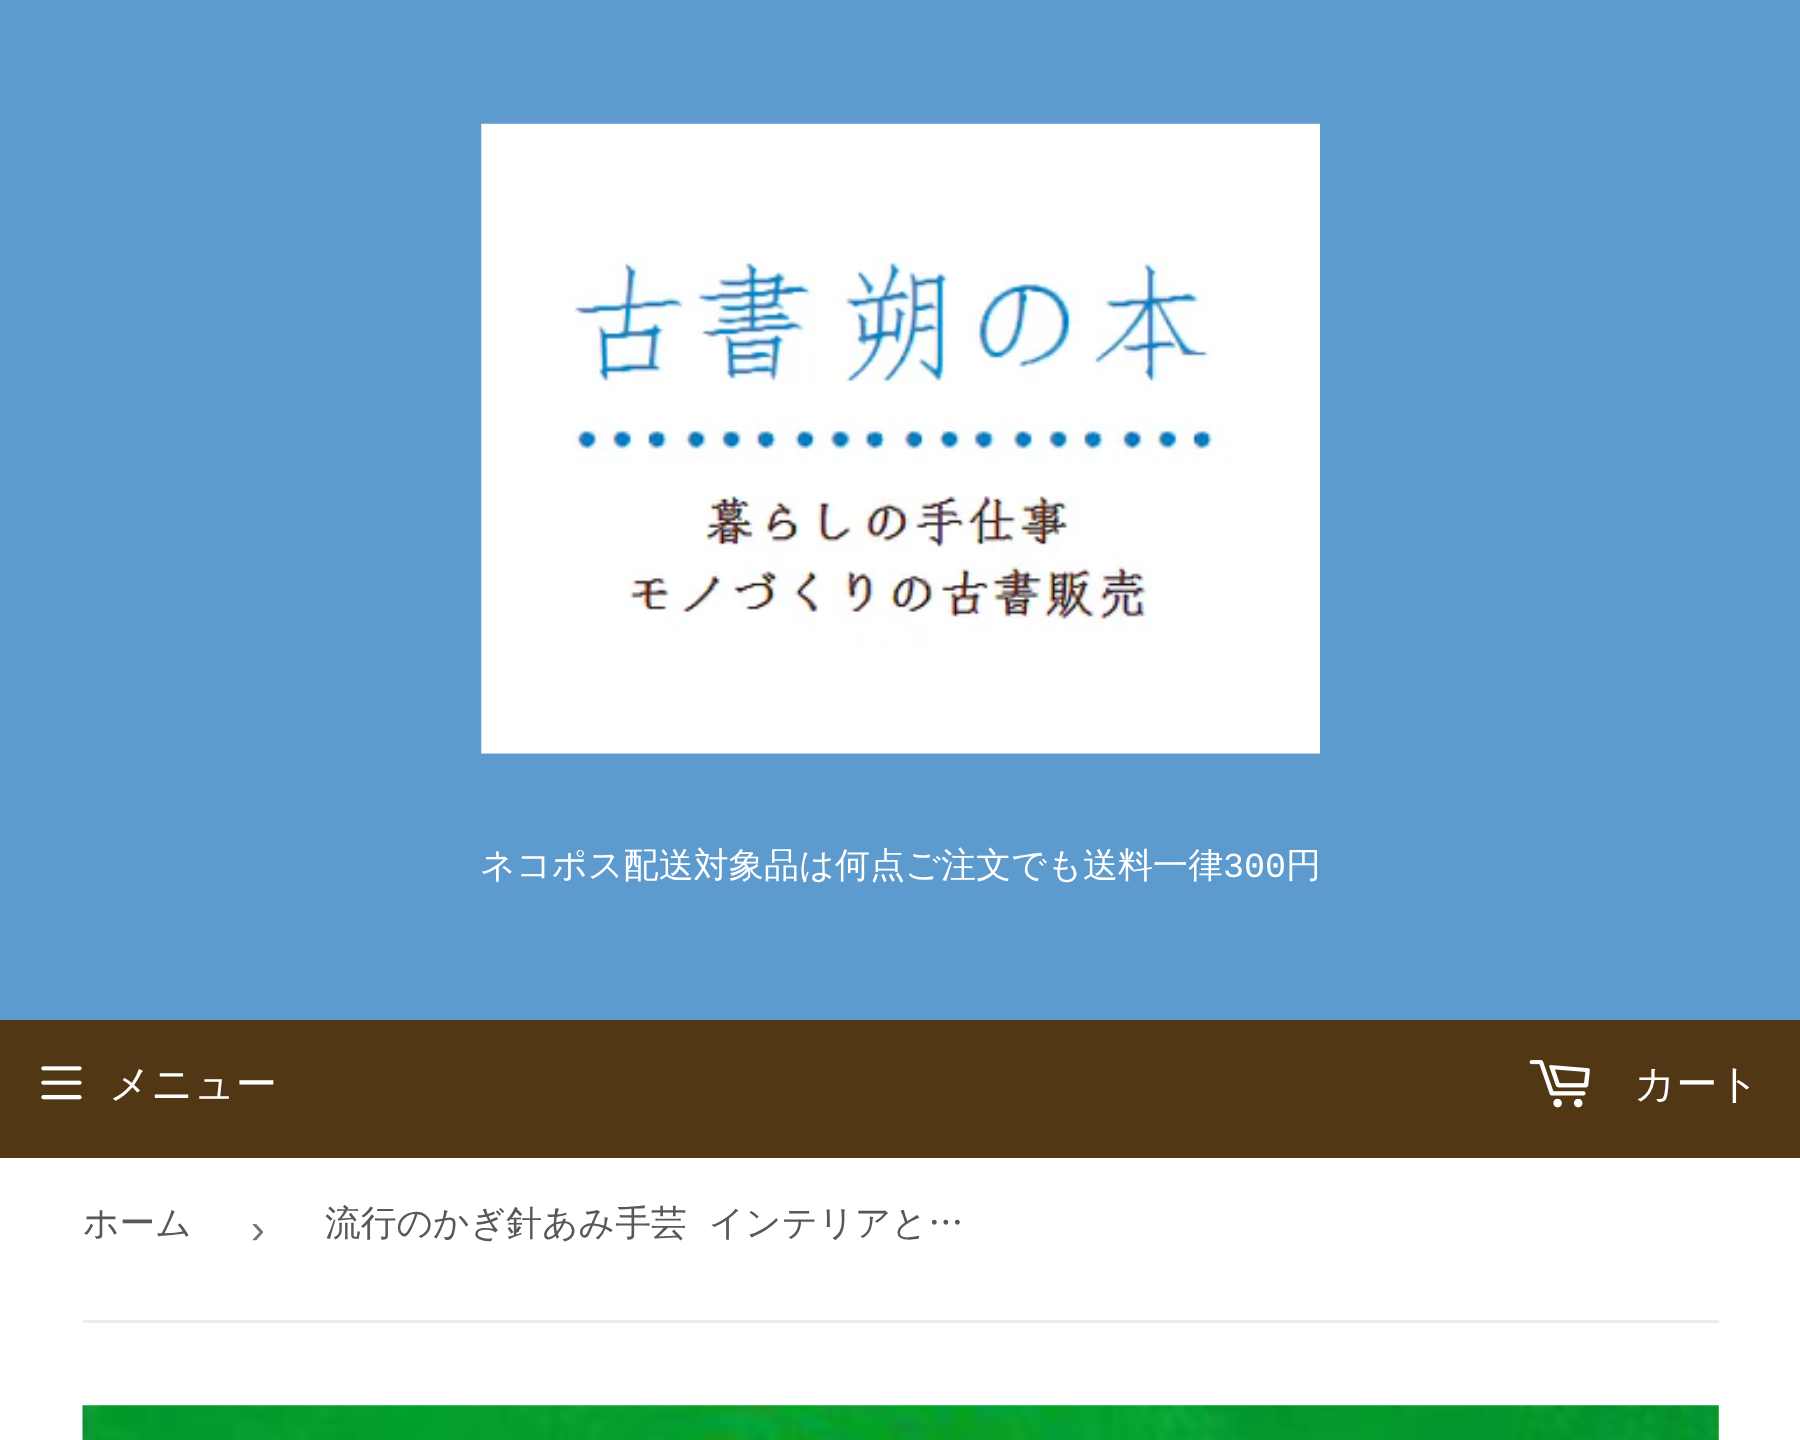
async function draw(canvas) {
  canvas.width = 1800
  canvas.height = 1440
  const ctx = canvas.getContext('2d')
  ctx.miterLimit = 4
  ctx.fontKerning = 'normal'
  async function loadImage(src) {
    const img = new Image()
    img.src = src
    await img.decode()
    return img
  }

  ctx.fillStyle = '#fff'
  ctx.fillRect(0, 0, 1800, 1440)
  ctx.fillStyle = '#5d9ace'
  ctx.fillRect(0, 0, 1800, 1020)
  ctx.drawImage(await loadImage('image0.png'), 481, 123, 839, 631)
  ctx.font = '500 35.1px WenQuanYi Zen Hei'
  ctx.fillStyle = '#fff'
  ctx.fillText('ネコポス配送対象品は何点ご注文でも送料一律', 480, 877)
  ctx.font = '35.1px Liberation Mono'
  ctx.fillText('300', 1223, 877)
  ctx.font = '500 35.1px WenQuanYi Zen Hei'
  ctx.fillText('円', 1286, 877)
  ctx.fillStyle = '#513713'
  ctx.fillRect(0, 1020, 1800, 138)
  ctx.drawImage(await loadImage('image1.png'), 41, 1066, 41, 34)
  ctx.font = '500 41.25px WenQuanYi Zen Hei'
  ctx.fillStyle = '#fff'
  ctx.fillText('メニュー', 109, 1098)
  ctx.drawImage(await loadImage('image2.png'), 1529, 1060, 61, 48)
  ctx.fillText('カート', 1634, 1098)
  ctx.fillStyle = '#ececec'
  ctx.fillRect(83, 1320, 1636, 3)
  ctx.font = '500 35.75px WenQuanYi Zen Hei'
  ctx.fillStyle = '#585858'
  ctx.fillText('ホーム', 83, 1235)
  ctx.font = '41.25px Liberation Sans'
  ctx.fillStyle = '#767676'
  ctx.fillText('›', 251, 1243)
  ctx.wordSpacing = '11px'
  ctx.font = '500 35.75px WenQuanYi Zen Hei'
  ctx.fillStyle = '#585858'
  ctx.fillText('流行のかぎ針あみ手芸 インテリアと…', 325, 1235)
  ctx.drawImage(await loadImage('image3.png'), 82, 1405, 1637, 35)
}

draw(document.querySelector('canvas'))
